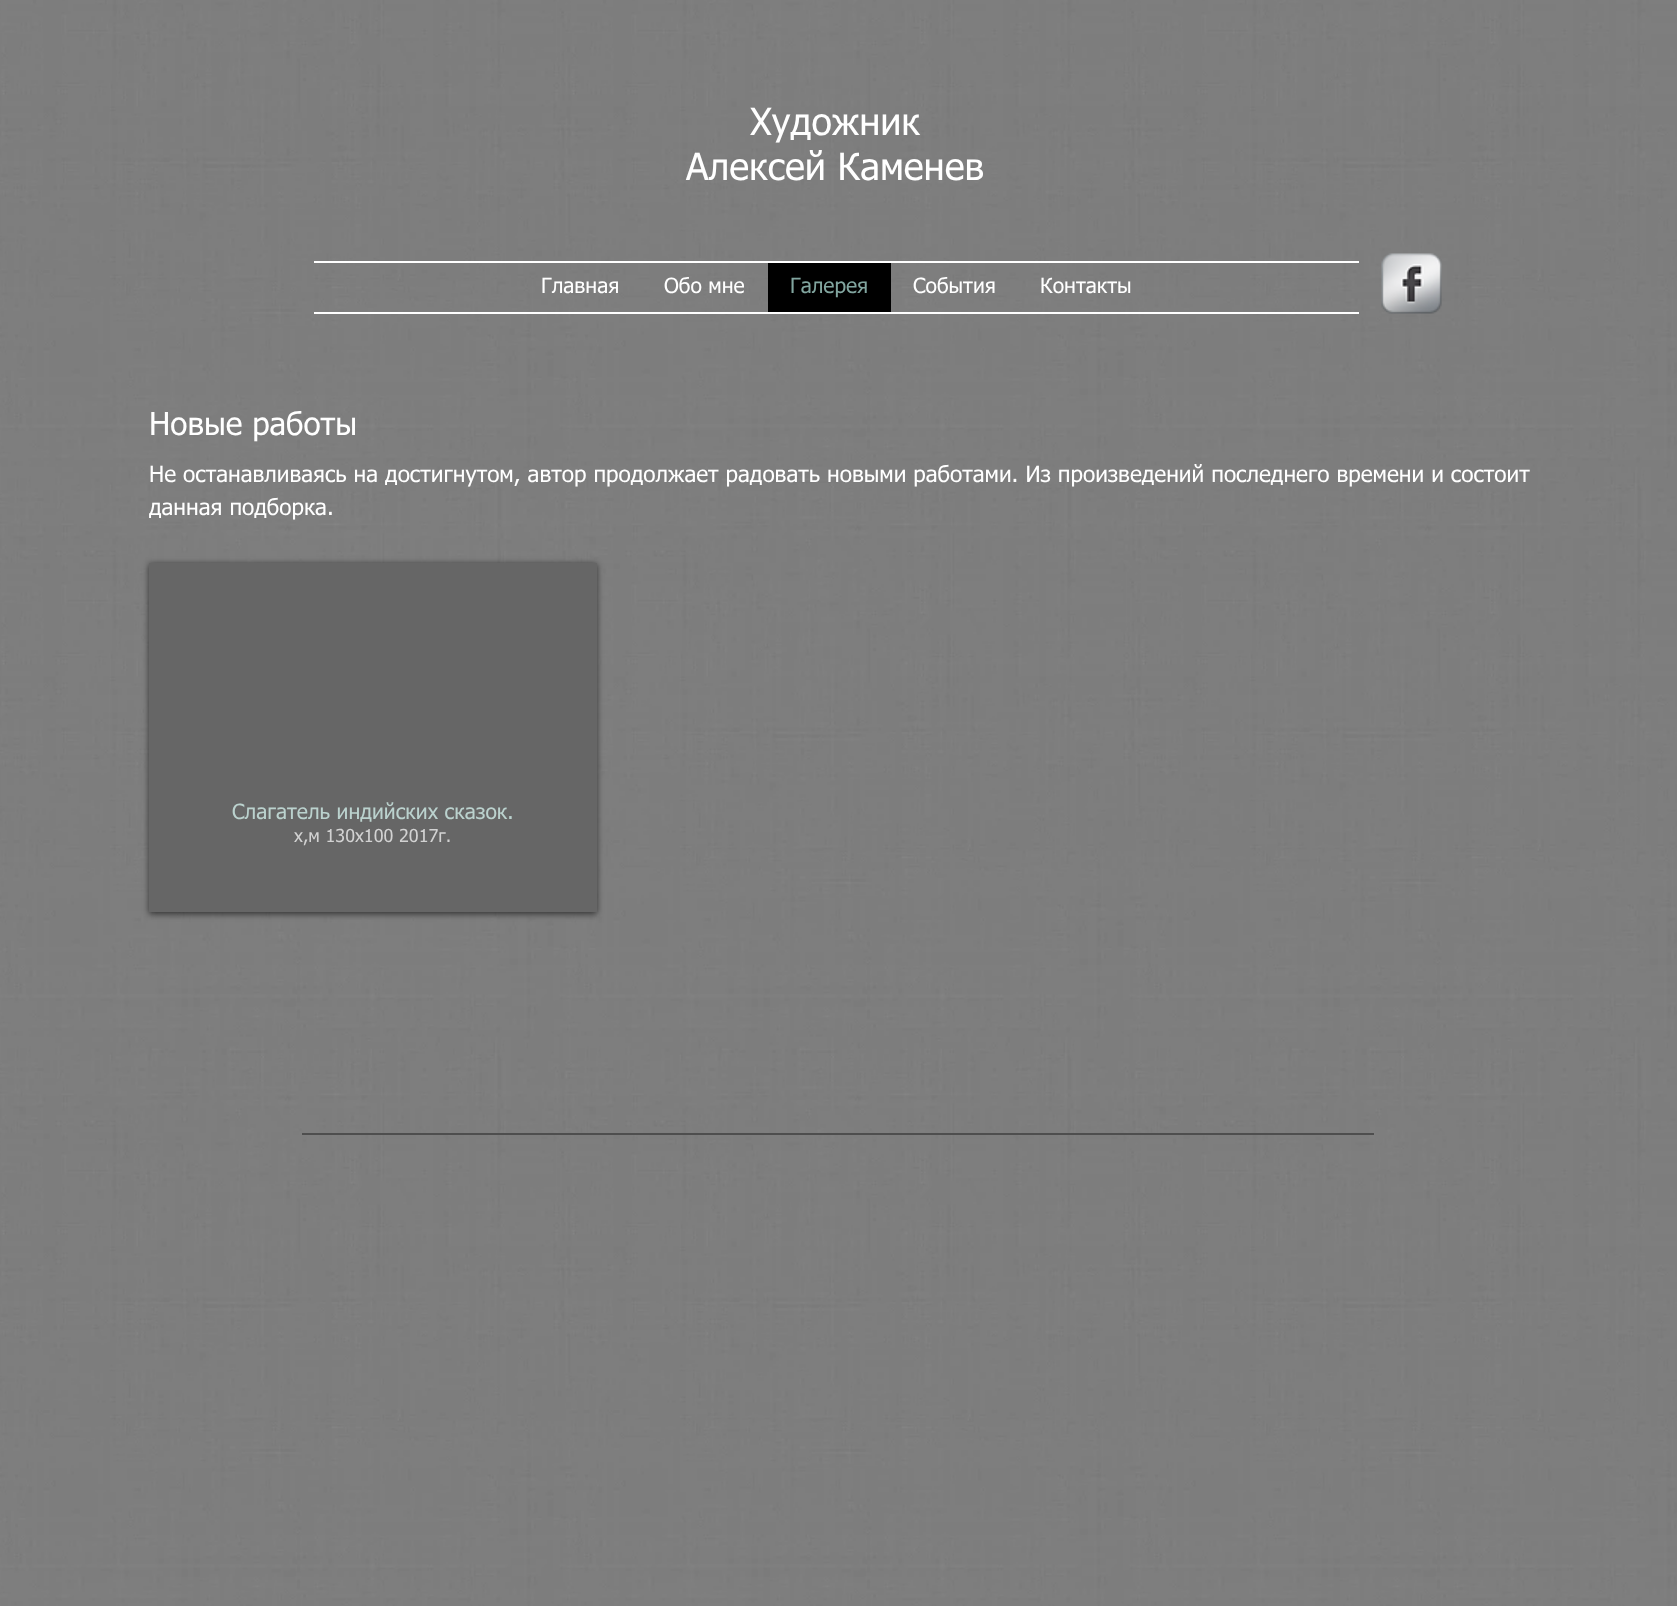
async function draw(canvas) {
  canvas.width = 1677
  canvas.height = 1606
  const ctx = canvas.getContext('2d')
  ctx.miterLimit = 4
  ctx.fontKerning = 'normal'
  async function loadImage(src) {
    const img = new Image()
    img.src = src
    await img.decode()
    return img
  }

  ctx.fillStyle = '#fff'
  ctx.fillRect(0, 0, 1677, 1606)
  ctx.drawImage(await loadImage('image0.png'), 0, 0, 1677, 1606)
  ctx.font = '37.5px tahoma'
  ctx.fillText('Художник', 750, 135)
  ctx.fillText('Алексей Каменев', 686, 180)
  ctx.fillRect(314, 261, 1045, 2)
  ctx.fillRect(314, 312, 1045, 2)
  ctx.font = '21px tahoma'
  ctx.fillText('Главная', 541, 293)
  ctx.fillText('Обо мне', 664, 293)
  ctx.fillStyle = '#000'
  ctx.fillRect(768, 263, 123, 49)
  ctx.fillStyle = '#81a59f'
  ctx.fillText('Галерея', 790, 293)
  ctx.fillStyle = '#fff'
  ctx.fillText('События', 913, 293)
  ctx.fillText('Контакты', 1040, 293)
  ctx.drawImage(await loadImage('image1.png'), 1381, 253, 61, 61)
  ctx.font = '31.5px tahoma'
  ctx.fillText('Новые работы', 149, 435)
  ctx.font = '22.5px tahoma'
  ctx.fillText('Не останавливаясь на достигнутом, автор продолжает радовать новыми работами. Из произведений последнего времени и состоит', 149, 482)
  ctx.fillText('данная подборка.', 149, 515)
  ctx.fillStyle = '#00000099'
  ctx.filter = 'blur(3px)'
  ctx.beginPath()
  ctx.rect(149, 564, 448, 350)
  ctx.fill()
  ctx.filter = 'none'
  ctx.fillStyle = '#666'
  ctx.fillRect(149, 563, 448, 349)
  ctx.font = '21px tahoma'
  ctx.fillStyle = '#bbd2ce'
  ctx.fillText('Слагатель индийских сказок.', 232, 819)
  ctx.font = '18px tahoma'
  ctx.fillStyle = '#d2d2d2'
  ctx.fillText('х,м 130х100 2017г.', 294, 842)
  ctx.fillStyle = '#4e4e4e'
  ctx.fillRect(302, 1133, 1072, 2)
}

draw(document.querySelector('canvas'))
